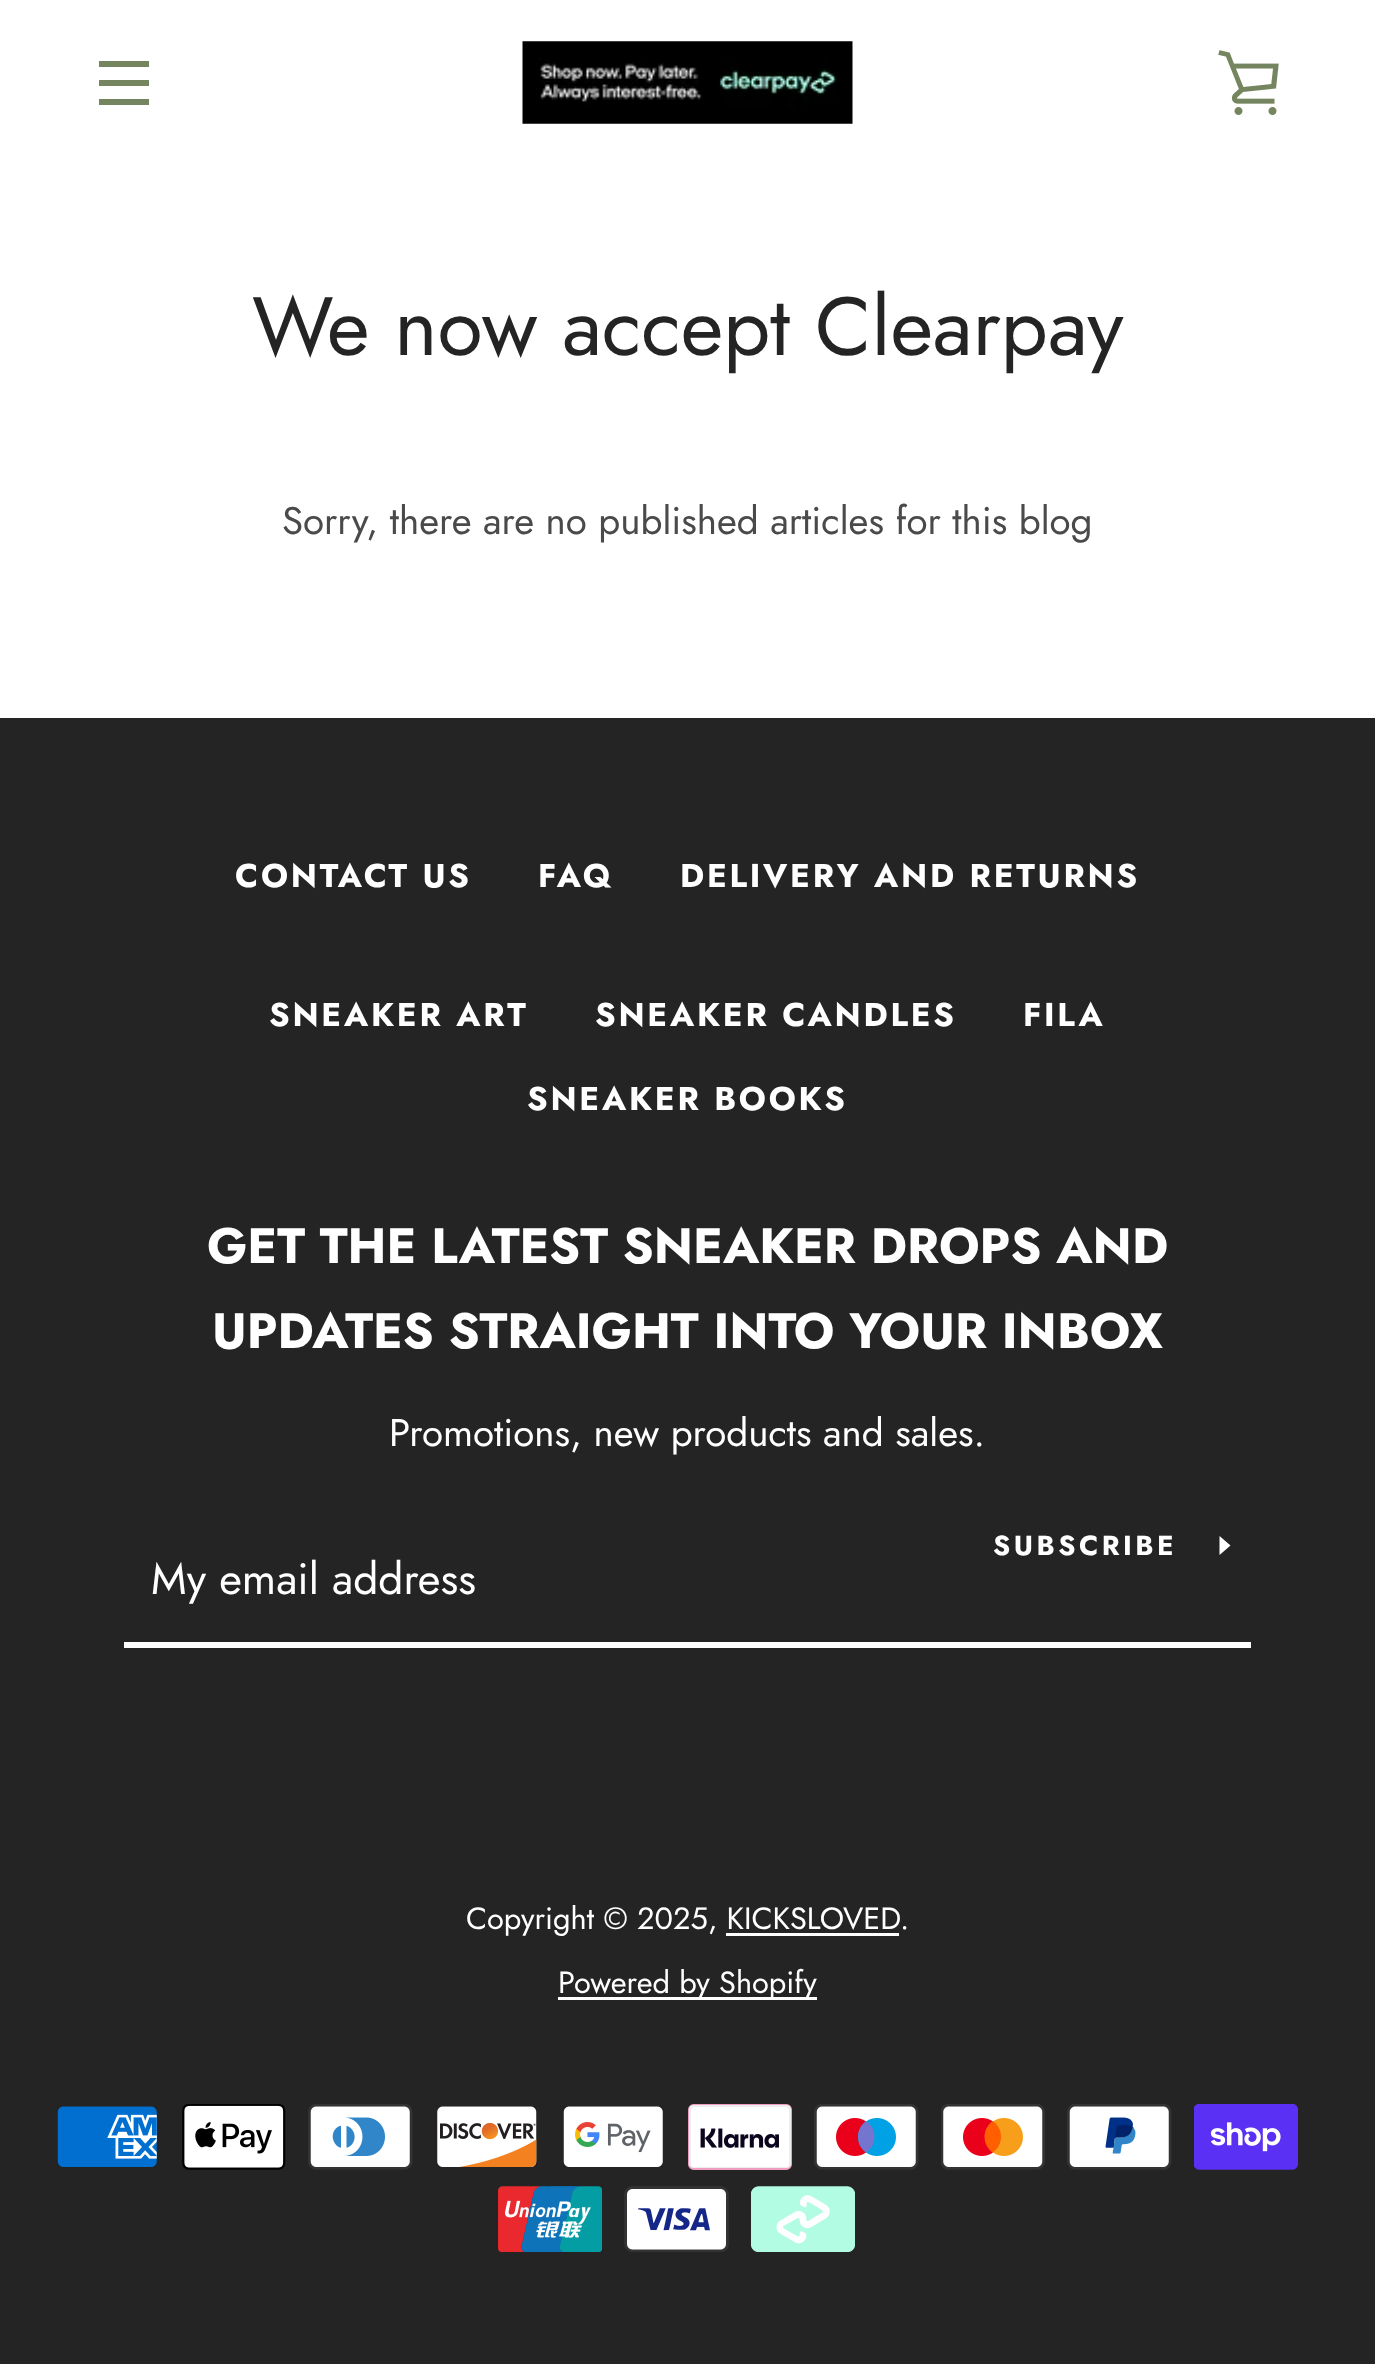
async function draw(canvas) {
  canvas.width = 1375
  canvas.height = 2364
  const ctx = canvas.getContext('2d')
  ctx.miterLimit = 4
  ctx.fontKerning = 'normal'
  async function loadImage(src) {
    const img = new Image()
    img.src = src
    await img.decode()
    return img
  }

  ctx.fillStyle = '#242424'
  ctx.fillRect(0, 0, 1375, 2364)
  ctx.fillStyle = '#fff'
  ctx.fillRect(0, 0, 1375, 718)
  ctx.fillStyle = '#758560'
  ctx.fillRect(99, 61, 50, 6)
  ctx.fillRect(99, 80, 50, 6)
  ctx.fillRect(99, 99, 50, 6)
  ctx.drawImage(await loadImage('image0.png'), 522, 41, 331, 83)
  ctx.drawImage(await loadImage('image1.png'), 1218, 50, 61, 65)
  ctx.font = '82.5px Jost'
  ctx.fillStyle = '#242424'
  ctx.fillText('We now accept Clearpay', 252, 355)
  ctx.font = '38.5px Jost'
  ctx.fillStyle = '#4a4a4a'
  ctx.fillText('Sorry, there are no published articles for this blog', 282, 534)
  ctx.letterSpacing = '2.75px'
  ctx.font = 'bold 33px Jost'
  ctx.fillStyle = '#fff'
  ctx.fillText('CONTACT US', 235, 887)
  ctx.fillText('FAQ', 538, 887)
  ctx.fillText('DELIVERY AND RETURNS', 680, 887)
  ctx.fillText('SNEAKER ART', 269, 1026)
  ctx.fillText('SNEAKER CANDLES', 595, 1026)
  ctx.fillText('FILA', 1023, 1026)
  ctx.fillText('SNEAKER BOOKS', 527, 1110)
  ctx.letterSpacing = '0px'
  ctx.font = 'bold 49.5px Jost'
  ctx.fillText('GET THE LATEST SNEAKER DROPS AND', 207, 1263)
  ctx.fillText('UPDATES STRAIGHT INTO YOUR INBOX', 212, 1348)
  ctx.font = '38.5px Jost'
  ctx.fillText('Promotions, new products and sales.', 389, 1446)
  ctx.fillRect(124, 1642, 1127, 6)
  ctx.letterSpacing = '3.5px'
  ctx.font = 'bold 27.5px Jost'
  ctx.fillText('SUBSCRIBE', 993, 1555)
  ctx.beginPath()
  ctx.moveTo(1230.5, 1545.5)
  ctx.lineTo(1219.5, 1555)
  ctx.lineTo(1219.5, 1536)
  ctx.closePath()
  ctx.fill()
  ctx.letterSpacing = '0px'
  ctx.font = '44px Jost'
  ctx.fillText('My email address', 151, 1594)
  ctx.font = '30.75px Jost'
  ctx.fillText('Copyright © 2025, KICKSLOVED', 466, 1929)
  ctx.fillText('.', 900, 1929)
  ctx.fillRect(726, 1933, 173, 3)
  ctx.fillRect(558, 1997, 259, 3)
  ctx.fillText('Powered by Shopify', 558, 1993)
  ctx.drawImage(await loadImage('image2.png'), 57, 2106, 100, 61)
  ctx.drawImage(await loadImage('image3.png'), 182, 2104, 104, 66)
  ctx.drawImage(await loadImage('image4.png'), 308, 2104, 105, 66)
  ctx.drawImage(await loadImage('image5.png'), 437, 2106, 100, 61)
  ctx.drawImage(await loadImage('image6.png'), 563, 2106, 100, 61)
  ctx.drawImage(await loadImage('image7.png'), 688, 2104, 104, 66)
  ctx.drawImage(await loadImage('image8.png'), 814, 2104, 105, 66)
  ctx.drawImage(await loadImage('image9.png'), 941, 2104, 104, 66)
  ctx.drawImage(await loadImage('image10.png'), 1067, 2104, 105, 66)
  ctx.drawImage(await loadImage('image11.png'), 1194, 2104, 104, 66)
  ctx.drawImage(await loadImage('image12.png'), 498, 2186, 104, 66)
  ctx.drawImage(await loadImage('image13.png'), 624, 2186, 105, 66)
  ctx.drawImage(await loadImage('image14.png'), 751, 2186, 104, 66)
}

draw(document.querySelector('canvas'))
